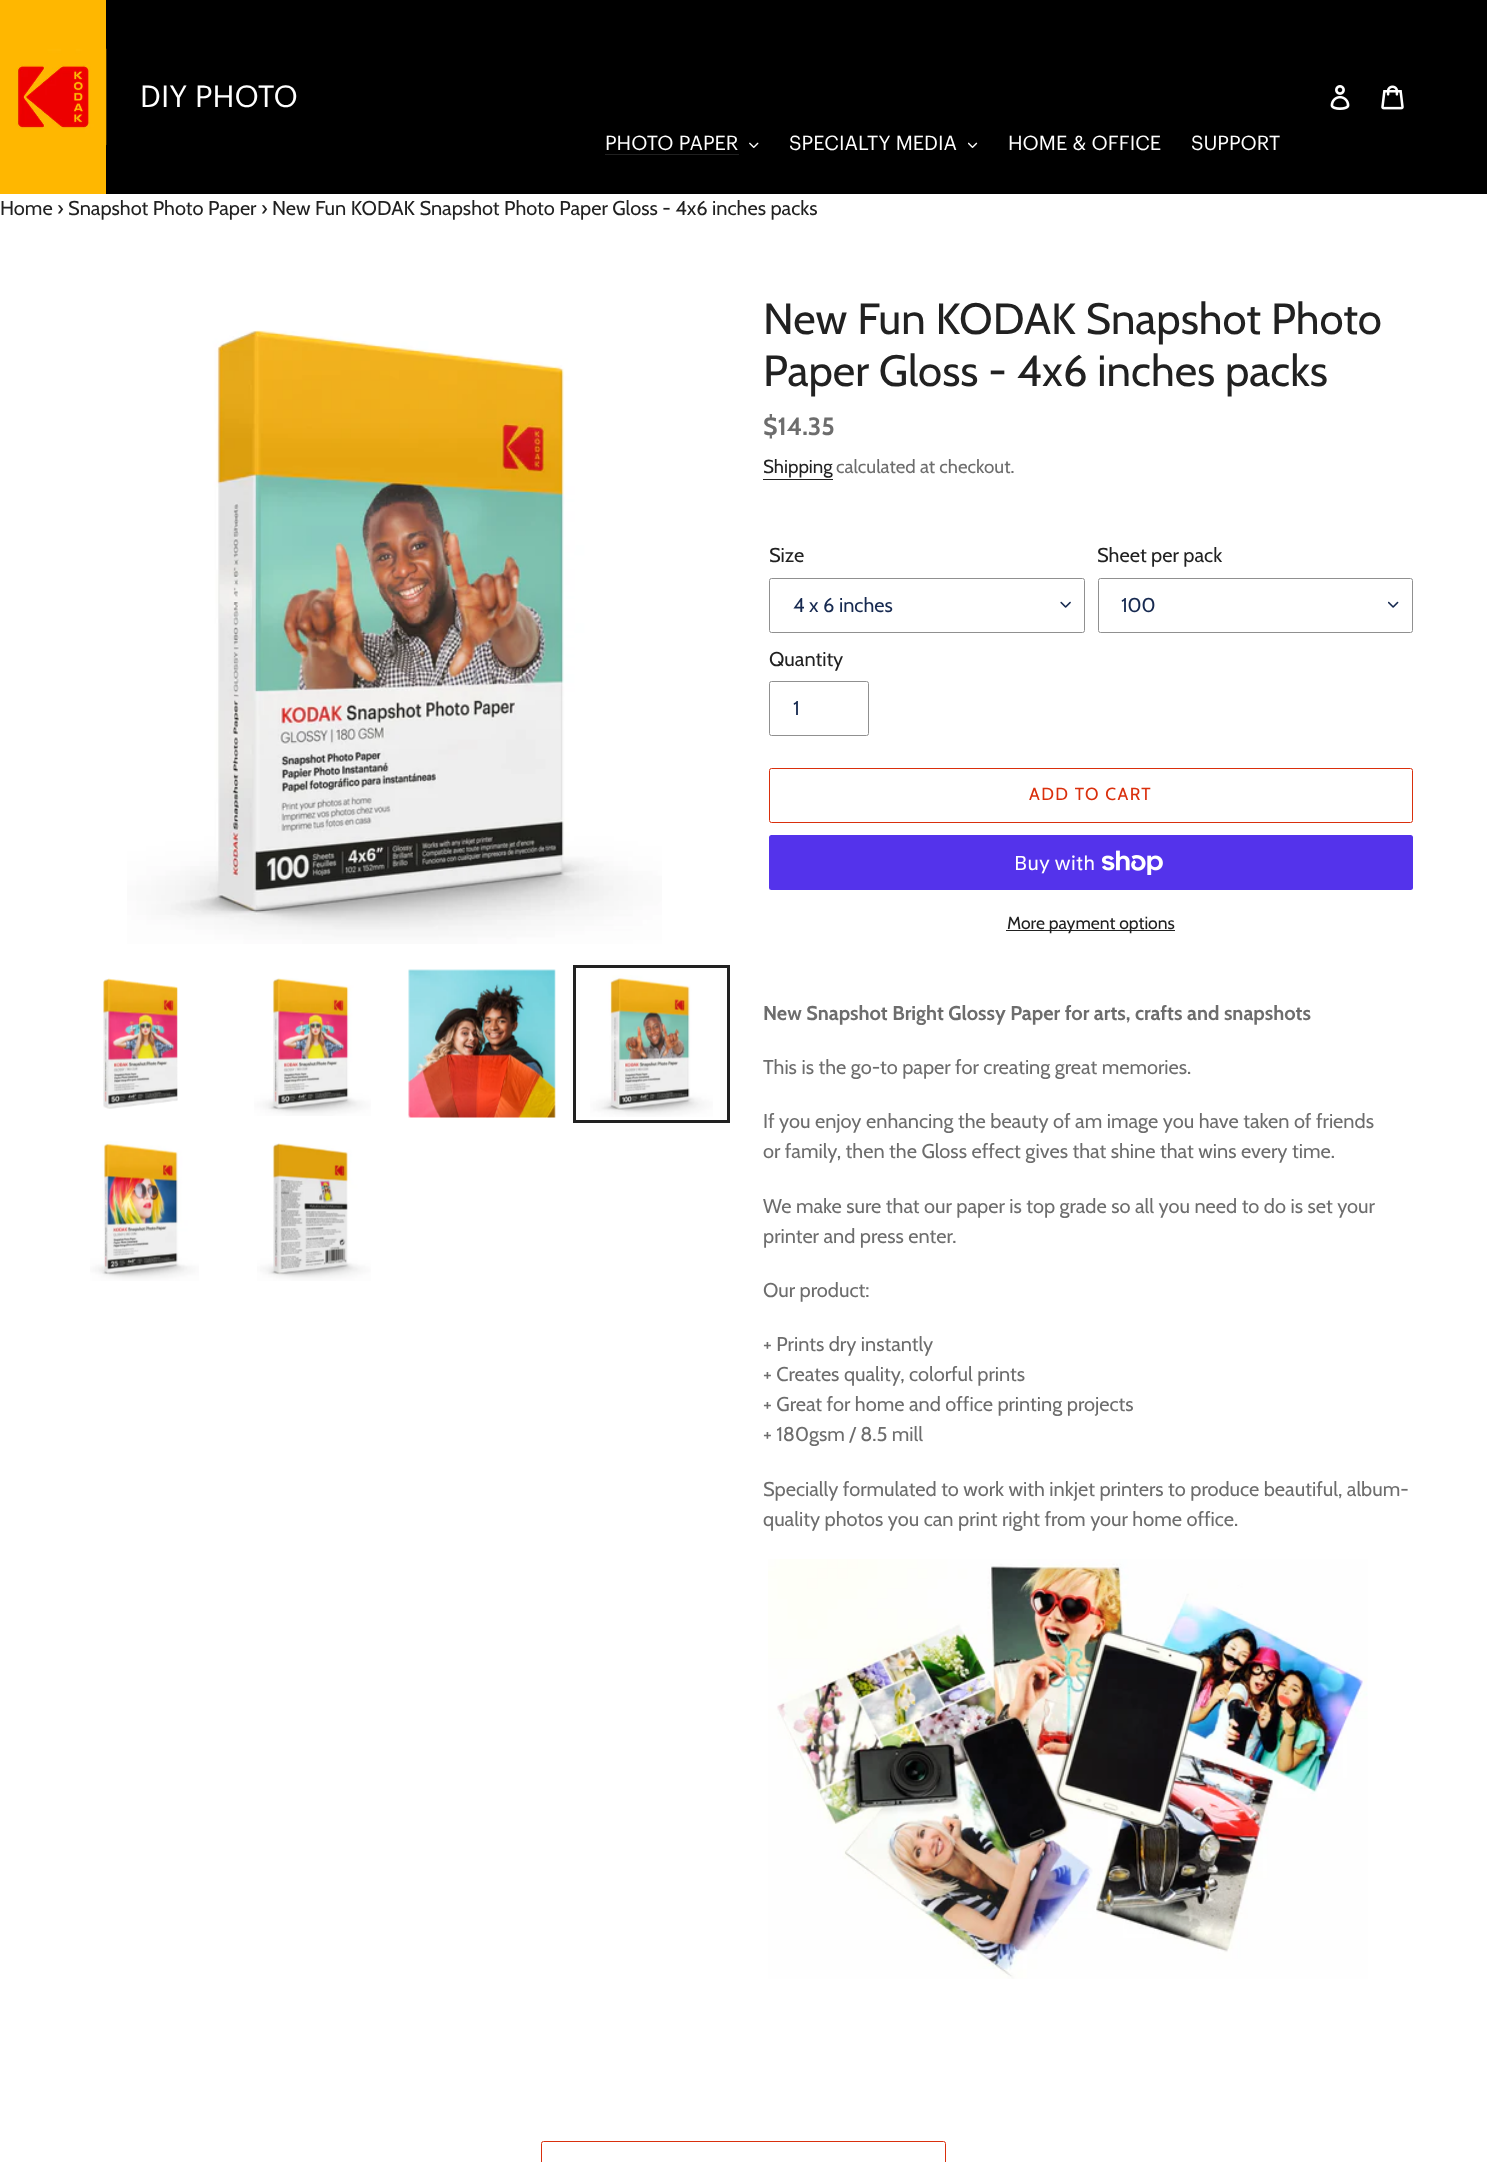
async function draw(canvas) {
  canvas.width = 1487
  canvas.height = 2162
  const ctx = canvas.getContext('2d')
  ctx.miterLimit = 4
  ctx.fontKerning = 'normal'
  async function loadImage(src) {
    const img = new Image()
    img.src = src
    await img.decode()
    return img
  }

  ctx.fillStyle = '#fff'
  ctx.fillRect(0, 0, 1487, 2162)
  ctx.fillStyle = '#000'
  ctx.fillRect(106, 0, 1381, 194)
  ctx.fillStyle = '#ffb700'
  ctx.fillRect(0, 0, 106, 194)
  ctx.drawImage(await loadImage('image0.png'), 15, 48, 92, 97)
  ctx.font = '30px Graphik'
  ctx.fillStyle = '#fff'
  ctx.fillText('DIY PHOTO', 140, 107)
  ctx.drawImage(await loadImage('image1.png'), 1330, 85, 20, 25)
  ctx.drawImage(await loadImage('image2.png'), 1381, 85, 23, 25)
  ctx.font = '20px Graphik'
  ctx.fillText('PHOTO PAPER', 605, 150)
  ctx.fillStyle = '#212121'
  ctx.fillRect(605, 154, 134, 1)
  ctx.drawImage(await loadImage('image3.png'), 749, 142, 10, 6)
  ctx.fillStyle = '#fff'
  ctx.fillText('SPECIALTY MEDIA', 789, 150)
  ctx.drawImage(await loadImage('image4.png'), 968, 142, 10, 6)
  ctx.fillText('HOME & OFFICE', 1008, 150)
  ctx.fillText('SUPPORT', 1191, 150)
  ctx.font = '20px Cabin'
  ctx.fillStyle = '#212121'
  ctx.fillText('Home › Snapshot Photo Paper › New Fun KODAK Snapshot Photo Paper Gloss - 4x6 inches packs', 0, 215)
  ctx.drawImage(await loadImage('image5.png'), 127, 330, 535, 614)
  ctx.drawImage(await loadImage('image6.png'), 103, 978, 75, 131)
  ctx.drawImage(await loadImage('image7.png'), 254, 978, 117, 138)
  ctx.drawImage(await loadImage('image8.png'), 408, 969, 148, 149)
  ctx.strokeStyle = '#212121'
  ctx.lineWidth = 3
  ctx.strokeRect(574.5, 966.5, 154, 155)
  ctx.drawImage(await loadImage('image9.png'), 590, 975, 123, 142)
  ctx.drawImage(await loadImage('image10.png'), 90, 1141, 109, 140)
  ctx.drawImage(await loadImage('image11.png'), 257, 1143, 114, 138)
  ctx.font = '43.75px Cabin'
  ctx.fillText('New Fun KODAK Snapshot Photo', 763, 334)
  ctx.fillText('Paper Gloss - 4x6 inches packs', 763, 386)
  ctx.font = 'bold 25px Cabin'
  ctx.fillStyle = '#6d6d6d'
  ctx.fillText('$14.35', 763, 435)
  ctx.font = '18.75px Cabin'
  ctx.fillStyle = '#212121'
  ctx.fillText('Shipping', 763, 473)
  ctx.fillRect(763, 479, 70, 1)
  ctx.fillStyle = '#6d6d6d'
  ctx.fillText('calculated at checkout.', 836, 473)
  ctx.font = '20px Cabin'
  ctx.fillStyle = '#212121'
  ctx.fillText('Size', 769, 562)
  ctx.drawImage(await loadImage('image12.png'), 1060, 601, 11, 7)
  ctx.beginPath()
  ctx.roundRect(769.5, 578.5, 315, 54, 2)
  ctx.strokeStyle = '#909090'
  ctx.lineWidth = 1
  ctx.stroke()
  ctx.fillStyle = '#162950'
  ctx.fillText('4 x 6 inches', 793, 612)
  ctx.fillStyle = '#212121'
  ctx.fillText('Sheet per pack', 1097, 562)
  ctx.drawImage(await loadImage('image13.png'), 1388, 601, 11, 7)
  ctx.beginPath()
  ctx.roundRect(1098.5, 578.5, 314, 54, 2)
  ctx.stroke()
  ctx.fillStyle = '#162950'
  ctx.fillText('100', 1121, 612)
  ctx.fillStyle = '#212121'
  ctx.fillText('Quantity', 769, 666)
  ctx.beginPath()
  ctx.roundRect(769.5, 681.5, 99, 54, 2)
  ctx.stroke()
  ctx.fillStyle = '#162950'
  ctx.fillText('1', 793, 715)
  ctx.beginPath()
  ctx.roundRect(769.5, 768.5, 643, 54, 2)
  ctx.strokeStyle = '#da2f0c'
  ctx.stroke()
  ctx.letterSpacing = '1.4px'
  ctx.font = '17.5px Cabin'
  ctx.fillStyle = '#da2f0c'
  ctx.fillText('ADD TO CART', 1029, 800)
  ctx.fillStyle = '#5433eb'
  ctx.beginPath()
  ctx.roundRect(769, 835, 644, 55, 2.5)
  ctx.fill()
  ctx.letterSpacing = '0px'
  ctx.font = '20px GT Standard'
  ctx.fillStyle = '#fff'
  ctx.fillText('Buy with', 1014, 870)
  ctx.drawImage(await loadImage('image14.png'), 1101, 850, 62, 25)
  ctx.fillStyle = '#212121'
  ctx.fillRect(1006, 930, 169, 1)
  ctx.font = '17.5px Cabin'
  ctx.fillText('More payment options', 1007, 929)
  ctx.font = 'bold 20px Cabin'
  ctx.fillStyle = '#6d6d6d'
  ctx.fillText('New Snapshot Bright Glossy Paper for arts, crafts and snapshots', 763, 1020)
  ctx.font = '20px Cabin'
  ctx.fillText('This is the go-to paper for creating great memories.', 763, 1074)
  ctx.fillText('If you enjoy enhancing the beauty of am image you have taken of friends', 763, 1128)
  ctx.fillText('or family, then the Gloss effect gives that shine that wins every time.', 763, 1158)
  ctx.fillText('We make sure that our paper is top grade so all you need to do is set your', 763, 1213)
  ctx.fillText('printer and press enter.', 763, 1243)
  ctx.fillText('Our product:', 763, 1297)
  ctx.fillText('+ Prints dry instantly', 763, 1351)
  ctx.fillText('+ Creates quality, colorful prints', 763, 1381)
  ctx.fillText('+ Great for home and office printing projects', 763, 1411)
  ctx.fillText('+ 180gsm / 8.5 mill', 763, 1441)
  ctx.fillText('Specially formulated to work with inkjet printers to produce beautiful, album-', 763, 1496)
  ctx.fillText('quality photos you can print right from your home office.', 763, 1526)
  ctx.drawImage(await loadImage('image15.png'), 768, 1559, 600, 420)
  ctx.beginPath()
  ctx.roundRect(541.5, 2141.5, 404, 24, 2)
  ctx.stroke()
}

draw(document.querySelector('canvas'))
